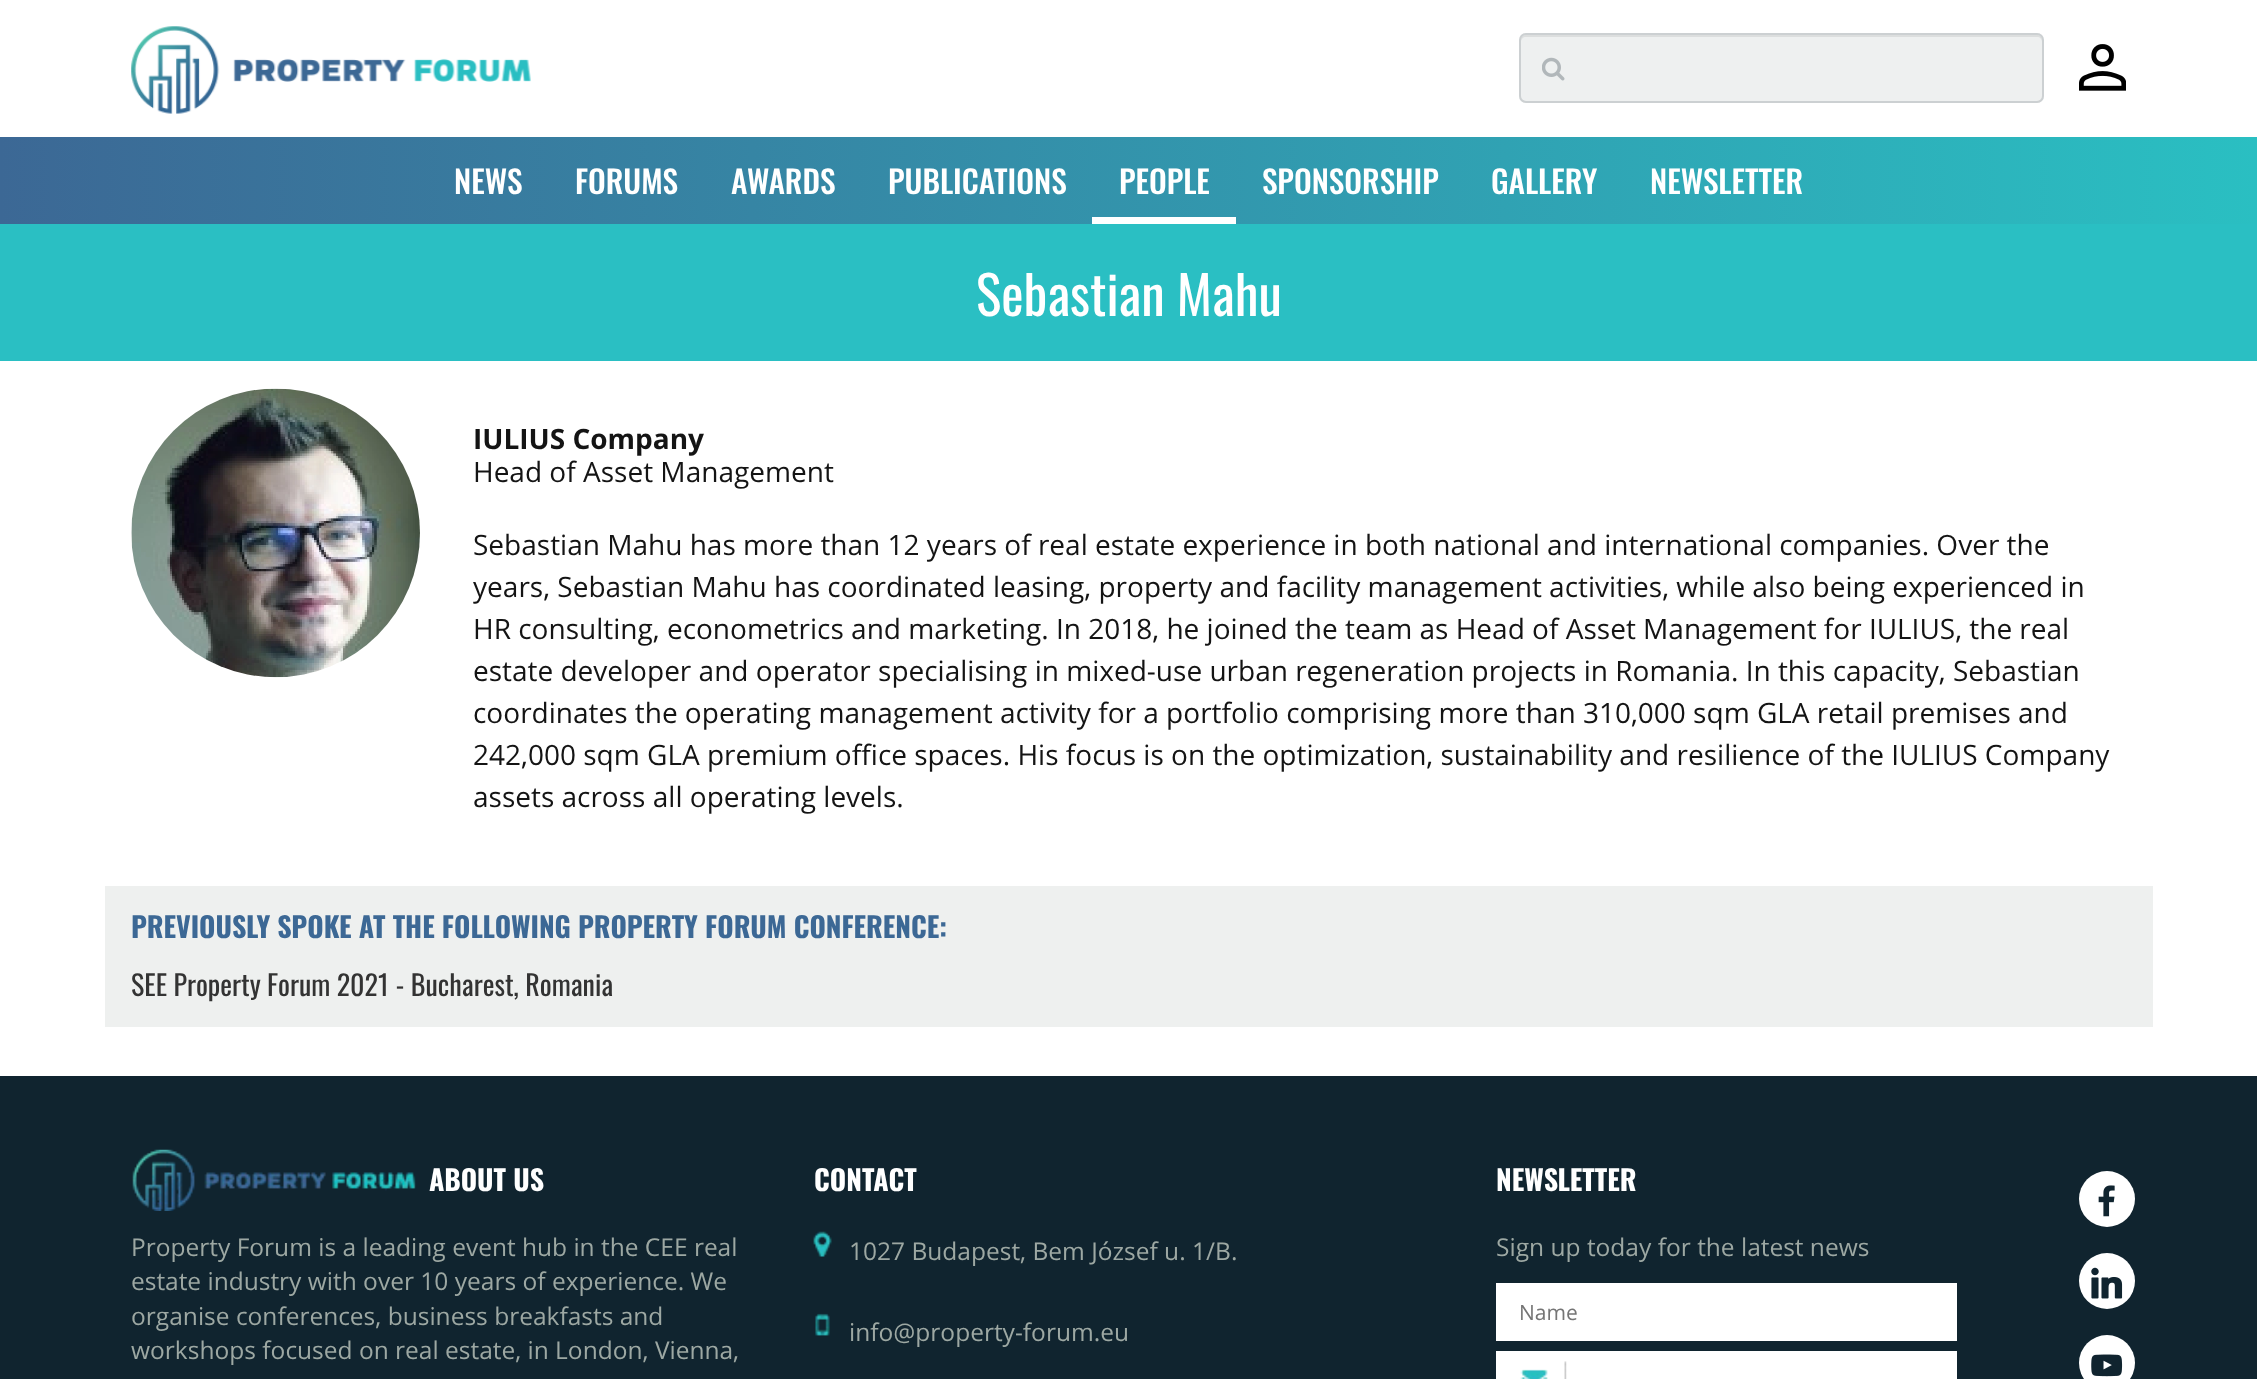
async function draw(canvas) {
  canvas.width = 2257
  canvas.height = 1379
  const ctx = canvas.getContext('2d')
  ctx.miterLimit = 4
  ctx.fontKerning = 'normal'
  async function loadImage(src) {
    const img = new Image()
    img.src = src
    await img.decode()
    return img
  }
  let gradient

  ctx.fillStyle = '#fff'
  ctx.fillRect(0, 0, 2257, 1379)
  ctx.drawImage(await loadImage('image0.png'), 131, 26, 400, 88)
  ctx.fillStyle = '#eef0f0'
  ctx.beginPath()
  ctx.roundRect(1519, 33, 525, 70, 7)
  ctx.fill()
  ctx.fillStyle = '#dcdede'
  ctx.beginPath()
  ctx.moveTo(1526, 37)
  ctx.lineTo(2037, 37)
  ctx.bezierCurveTo(2040, 37, 2042, 39, 2042, 42)
  ctx.lineTo(2042, 40)
  ctx.bezierCurveTo(2042, 37, 2040, 35, 2037, 35)
  ctx.lineTo(1526, 35)
  ctx.bezierCurveTo(1523, 35, 1521, 37, 1521, 40)
  ctx.lineTo(1521, 42)
  ctx.bezierCurveTo(1521, 39, 1523, 37, 1526, 37)
  ctx.closePath()
  ctx.fill()
  ctx.beginPath()
  ctx.roundRect(1520, 34, 523, 68, 6)
  ctx.strokeStyle = '#ccd0d2'
  ctx.lineWidth = 2
  ctx.stroke()
  ctx.drawImage(await loadImage('image1.png'), 1542, 57, 23, 24)
  ctx.drawImage(await loadImage('image2.png'), 2079, 44, 47, 47)
  gradient = ctx.createLinearGradient(0, 180, 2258, 180)
  gradient.addColorStop(0, '#3c6895')
  gradient.addColorStop(1, '#2abfc2')
  ctx.fillStyle = gradient
  ctx.fillRect(0, 137, 2257, 87)
  ctx.font = '500 31.5px Oswald'
  ctx.fillStyle = '#fff'
  ctx.fillText('NEWS', 454, 194)
  ctx.fillText('FORUMS', 575, 194)
  ctx.fillText('AWARDS', 731, 194)
  ctx.fillText('PUBLICATIONS', 888, 194)
  ctx.fillRect(1092, 217, 144, 7)
  ctx.fillText('PEOPLE', 1119, 194)
  ctx.fillText('SPONSORSHIP', 1262, 194)
  ctx.fillText('GALLERY', 1491, 194)
  ctx.fillText('NEWSLETTER', 1650, 194)
  ctx.fillStyle = '#2abfc3'
  ctx.fillRect(0, 224, 2257, 137)
  ctx.font = '53.25px Oswald'
  ctx.fillStyle = '#fff'
  ctx.fillText('Sebastian Mahu', 976, 316)
  ctx.drawImage(await loadImage('image3.png'), 131, 388, 289, 290)
  ctx.font = 'bold 28px Open Sans'
  ctx.fillStyle = '#141414'
  ctx.fillText('IULIUS Company', 473, 449)
  ctx.font = '28px Open Sans'
  ctx.fillText('Head of Asset Management', 473, 482)
  ctx.fillText('Sebastian Mahu has more than 12 years of real estate experience in both national and international companies. Over the', 473, 555)
  ctx.fillText('years, Sebastian Mahu has coordinated leasing, property and facility management activities, while also being experienced in', 473, 597)
  ctx.fillText('HR consulting, econometrics and marketing. In 2018, he joined the team as Head of Asset Management for IULIUS, the real', 473, 639)
  ctx.fillText('estate developer and operator specialising in mixed-use urban regeneration projects in Romania. In this capacity, Sebastian', 473, 681)
  ctx.fillText('coordinates the operating management activity for a portfolio comprising more than 310,000 sqm GLA retail premises and', 473, 723)
  ctx.fillText('242,000 sqm GLA premium office spaces. His focus is on the optimization, sustainability and resilience of the IULIUS Company', 473, 765)
  ctx.fillText('assets across all operating levels.', 473, 807)
  ctx.fillStyle = '#eef0ef'
  ctx.fillRect(105, 886, 2048, 141)
  ctx.font = 'bold 28px Oswald'
  ctx.fillStyle = '#3c6895'
  ctx.fillText('PREVIOUSLY SPOKE AT THE FOLLOWING PROPERTY FORUM CONFERENCE:', 131, 938)
  ctx.font = '28px Oswald'
  ctx.fillStyle = '#333'
  ctx.fillText('SEE Property Forum 2021 - Bucharest, Romania', 131, 996)
  ctx.fillStyle = '#10242f'
  ctx.fillRect(0, 1076, 2257, 303)
  ctx.drawImage(await loadImage('image4.png'), 132, 1149, 284, 62)
  ctx.font = 'bold 28px Oswald'
  ctx.fillStyle = '#fff'
  ctx.fillText('ABOUT US', 429, 1191)
  ctx.font = '24.5px Open Sans'
  ctx.fillStyle = '#9da8a3'
  ctx.fillText('Property Forum is a leading event hub in the CEE real', 131, 1256)
  ctx.fillText('estate industry with over 10 years of experience. We', 131, 1290)
  ctx.fillText('organise conferences, business breakfasts and', 131, 1325)
  ctx.fillText('workshops focused on real estate, in London, Vienna,', 131, 1359)
  ctx.font = 'bold 28px Oswald'
  ctx.fillStyle = '#fff'
  ctx.fillText('CONTACT', 814, 1191)
  ctx.drawImage(await loadImage('image5.png'), 813, 1231, 19, 26)
  ctx.font = '24.5px Open Sans'
  ctx.fillStyle = '#9da8a3'
  ctx.fillText('1027 Budapest, Bem József u. 1/B.', 849, 1260)
  ctx.drawImage(await loadImage('image6.png'), 815, 1313, 15, 23)
  ctx.fillText('info@property-forum.eu', 849, 1341)
  ctx.font = 'bold 28px Oswald'
  ctx.fillStyle = '#fff'
  ctx.fillText('NEWSLETTER', 1496, 1191)
  ctx.font = '24.5px Open Sans'
  ctx.fillStyle = '#9da8a3'
  ctx.fillText('Sign up today for the latest news', 1496, 1256)
  ctx.fillStyle = '#fff'
  ctx.fillRect(1496, 1283, 461, 58)
  ctx.font = '21px Open Sans'
  ctx.fillStyle = '#757575'
  ctx.fillText('Name', 1519, 1320)
  ctx.fillStyle = '#fff'
  ctx.fillRect(1496, 1351, 461, 28)
  ctx.drawImage(await loadImage('image7.png'), 1520, 1361, 47, 18)
  ctx.beginPath()
  ctx.arc(2107, 1199, 28, 0, 2 * Math.PI)
  ctx.fill()
  ctx.drawImage(await loadImage('image8.png'), 2098, 1185, 17, 32)
  ctx.beginPath()
  ctx.arc(2107, 1281, 28, 0, 2 * Math.PI)
  ctx.fill()
  ctx.drawImage(await loadImage('image9.png'), 2091, 1267, 32, 32)
  ctx.beginPath()
  ctx.arc(2107, 1363, 28, 0, 2 * Math.PI)
  ctx.fill()
  ctx.drawImage(await loadImage('image10.png'), 2091, 1354, 32, 23)
}

draw(document.querySelector('canvas'))
